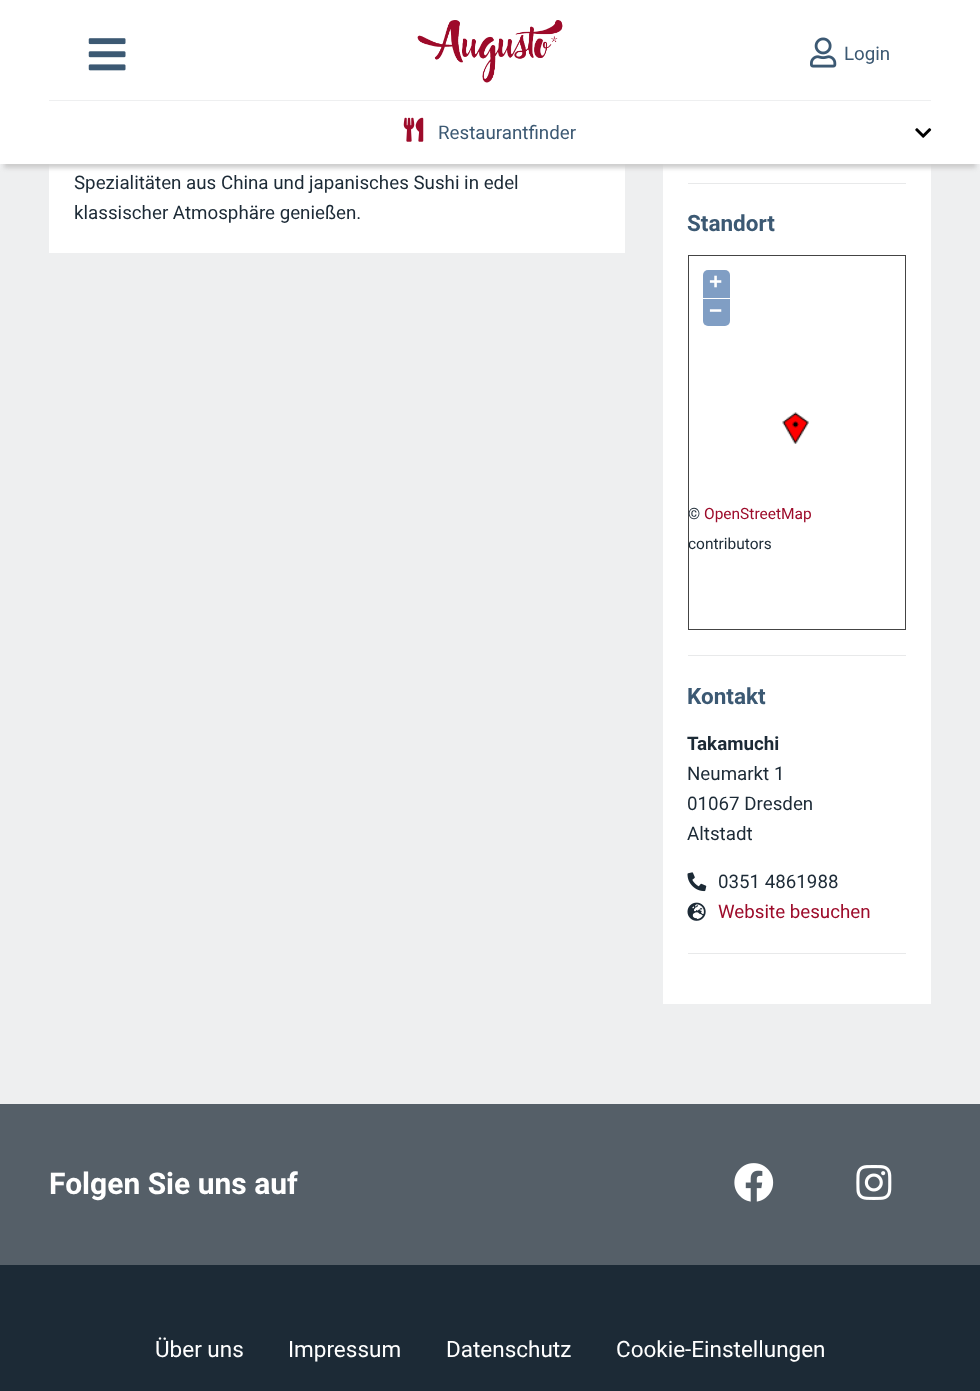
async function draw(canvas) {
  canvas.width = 980
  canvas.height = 1391
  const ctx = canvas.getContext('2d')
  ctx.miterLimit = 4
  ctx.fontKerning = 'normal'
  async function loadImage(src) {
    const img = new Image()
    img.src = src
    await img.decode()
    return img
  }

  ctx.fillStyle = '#eeeff0'
  ctx.fillRect(0, 0, 980, 1391)
  ctx.fillStyle = '#fff'
  ctx.fillRect(49, 164, 576, 89)
  ctx.fillRect(663, 164, 268, 840)
  ctx.fillStyle = '#c8c8c8e6'
  ctx.filter = 'blur(2px)'
  ctx.beginPath()
  ctx.rect(4, 11, 972, 157)
  ctx.fill()
  ctx.filter = 'none'
  ctx.fillStyle = '#fff'
  ctx.fillRect(0, 0, 980, 164)
  ctx.drawImage(await loadImage('image0.png'), 88, 38, 38, 33)
  ctx.drawImage(await loadImage('image1.png'), 417, 20, 146, 63)
  ctx.drawImage(await loadImage('image2.png'), 810, 37, 27, 31)
  ctx.font = '18.75px Roboto'
  ctx.fillStyle = '#3c5973'
  ctx.fillText('Login', 844, 60)
  ctx.fillStyle = '#eeeff0'
  ctx.fillRect(49, 100, 882, 1)
  ctx.drawImage(await loadImage('image3.png'), 403, 117, 21, 25)
  ctx.fillStyle = '#3c5973'
  ctx.fillText('Restaurantfinder', 438, 139)
  ctx.drawImage(await loadImage('image4.png'), 915, 128, 17, 10)
  ctx.fillStyle = '#1c2a36'
  ctx.fillText('Spezialitäten aus China und japanisches Sushi in edel', 74, 189)
  ctx.fillText('klassischer Atmosphäre genießen.', 74, 219)
  ctx.fillStyle = '#e8e9ea'
  ctx.fillRect(688, 183, 218, 1)
  ctx.font = 'bold 22.5px Roboto'
  ctx.fillStyle = '#3c5973'
  ctx.fillText('Standort', 687, 231)
  ctx.strokeStyle = '#444'
  ctx.strokeRect(688.5, 255.5, 217, 374)
  ctx.fillStyle = '#809ec4'
  ctx.beginPath()
  ctx.roundRect(703, 270, 27, 28, [5, 5, 0, 0])
  ctx.fill()
  ctx.font = 'bold 22.5px Liberation Sans'
  ctx.fillStyle = '#fff'
  ctx.fillText('+', 709, 289)
  ctx.fillStyle = '#809ec4'
  ctx.beginPath()
  ctx.roundRect(703, 299, 27, 27, [0, 0, 5, 5])
  ctx.fill()
  ctx.fillStyle = '#fff'
  ctx.fillText('−', 709, 318)
  ctx.drawImage(await loadImage('image5.png'), 782, 412, 27, 32)
  ctx.font = '15.5px Roboto'
  ctx.fillStyle = '#1c2a36'
  ctx.fillText('©', 688, 519)
  ctx.fillStyle = '#9d0b2a'
  ctx.fillText('OpenStreetMap', 704, 519)
  ctx.fillStyle = '#1c2a36'
  ctx.fillText('contributors', 688, 549)
  ctx.fillStyle = '#e8e9ea'
  ctx.fillRect(688, 655, 218, 1)
  ctx.font = 'bold 22.5px Roboto'
  ctx.fillStyle = '#3c5973'
  ctx.fillText('Kontakt', 687, 704)
  ctx.font = 'bold 18.75px Roboto'
  ctx.fillStyle = '#1c2a36'
  ctx.fillText('Takamuchi', 687, 750)
  ctx.font = '18.75px Roboto'
  ctx.fillText('Neumarkt 1', 687, 780)
  ctx.fillText('01067 Dresden', 687, 810)
  ctx.fillText('Altstadt', 687, 840)
  ctx.drawImage(await loadImage('image6.png'), 687, 872, 20, 20)
  ctx.fillText('0351 4861988', 718, 888)
  ctx.drawImage(await loadImage('image7.png'), 687, 902, 19, 19)
  ctx.fillStyle = '#9d0b2a'
  ctx.fillText('Website besuchen', 718, 918)
  ctx.fillStyle = '#e8e9ea'
  ctx.fillRect(688, 953, 218, 1)
  ctx.fillStyle = '#555f68'
  ctx.fillRect(0, 1104, 980, 161)
  ctx.font = 'bold 30px Roboto'
  ctx.fillStyle = '#fff'
  ctx.fillText('Folgen Sie uns auf', 49, 1194)
  ctx.drawImage(await loadImage('image8.png'), 734, 1163, 40, 39)
  ctx.drawImage(await loadImage('image9.png'), 856, 1165, 36, 35)
  ctx.fillStyle = '#1c2a36'
  ctx.fillRect(0, 1265, 980, 126)
  ctx.font = '22.5px Roboto'
  ctx.fillStyle = '#fff'
  ctx.fillText('Über uns', 155, 1357)
  ctx.fillText('Impressum', 288, 1357)
  ctx.fillText('Datenschutz', 446, 1357)
  ctx.fillText('Cookie-Einstellungen', 616, 1357)
}

draw(document.querySelector('canvas'))
